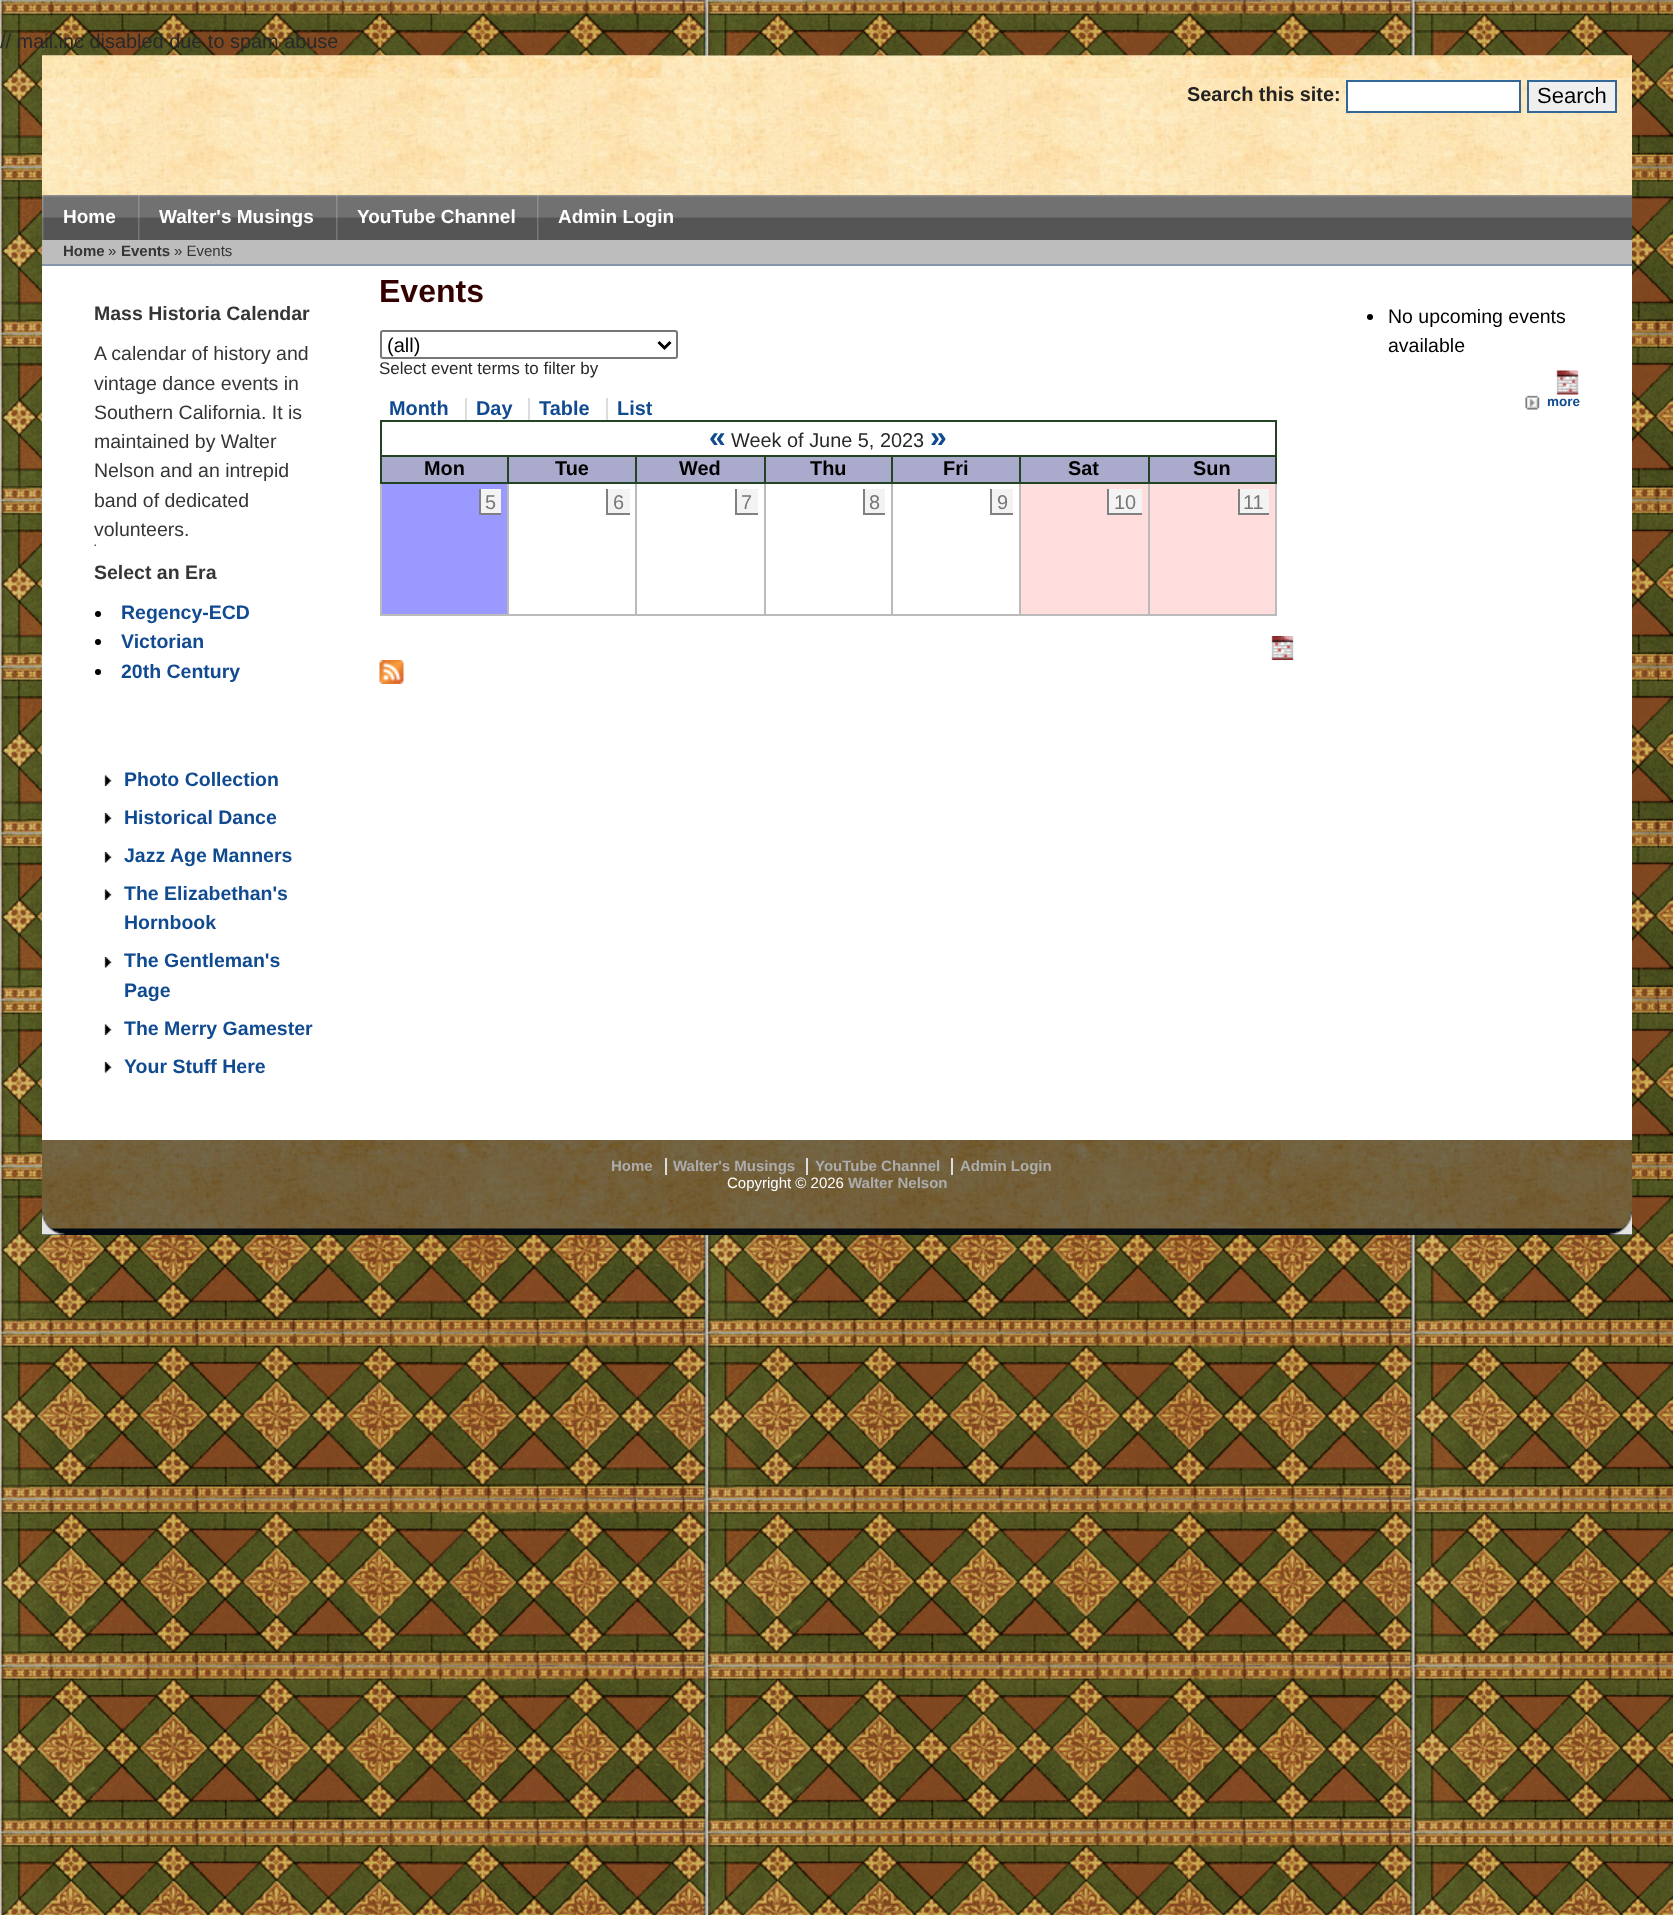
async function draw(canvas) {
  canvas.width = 1673
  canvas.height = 1915
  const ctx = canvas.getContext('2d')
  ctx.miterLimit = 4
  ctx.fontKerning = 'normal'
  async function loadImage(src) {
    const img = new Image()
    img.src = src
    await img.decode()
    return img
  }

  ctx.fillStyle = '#fff'
  ctx.fillRect(0, 0, 1673, 1915)
  ctx.drawImage(await loadImage('image0.png'), 0, 0, 1673, 1915)
  ctx.font = '19.9px Liberation Sans'
  ctx.fillStyle = '#292929'
  ctx.fillText('// mail.inc disabled due to spam abuse', 0, 48)
  ctx.drawImage(await loadImage('image1.png'), 42, 55, 1590, 140)
  ctx.drawImage(await loadImage('image2.png'), 1012, 55, 620, 23)
  ctx.drawImage(await loadImage('image3.png'), 42, 55, 620, 23)
  ctx.font = 'bold 19.9px Liberation Sans'
  ctx.fillStyle = '#222'
  ctx.fillText('Search this site:', 1187, 101)
  ctx.fillStyle = '#fff'
  ctx.beginPath()
  ctx.rect(1347, 81, 173, 31)
  ctx.fill()
  ctx.strokeStyle = '#369'
  ctx.lineWidth = 2
  ctx.stroke()
  ctx.fillStyle = '#efefef'
  ctx.beginPath()
  ctx.rect(1528, 81, 88, 31)
  ctx.fill()
  ctx.stroke()
  ctx.font = '22px Liberation Sans'
  ctx.fillStyle = '#000'
  ctx.fillText('Search', 1537, 103)
  ctx.drawImage(await loadImage('image4.png'), 43, 195, 1589, 45)
  ctx.drawImage(await loadImage('image5.png'), 42, 195, 2, 45)
  ctx.font = 'bold 19px Liberation Sans'
  ctx.fillStyle = '#fff'
  ctx.fillText('Home', 63, 223)
  ctx.drawImage(await loadImage('image5.png'), 138, 195, 2, 45)
  ctx.fillText('Walter\'s Musings', 159, 223)
  ctx.drawImage(await loadImage('image5.png'), 336, 195, 2, 45)
  ctx.fillText('YouTube Channel', 357, 223)
  ctx.drawImage(await loadImage('image5.png'), 537, 195, 2, 45)
  ctx.fillText('Admin Login', 558, 223)
  ctx.fillStyle = '#bdbdbd'
  ctx.fillRect(42, 240, 1590, 24)
  ctx.fillStyle = '#8596aa'
  ctx.fillRect(42, 264, 1590, 2)
  ctx.font = 'bold 15px Liberation Sans'
  ctx.fillStyle = '#353535'
  ctx.fillText('Home', 63, 256)
  ctx.font = '15px Liberation Sans'
  ctx.fillText('»', 108, 256)
  ctx.font = 'bold 15px Liberation Sans'
  ctx.fillText('Events', 121, 256)
  ctx.font = '15px Liberation Sans'
  ctx.fillText('» Events', 174, 256)
  ctx.fillStyle = '#fff'
  ctx.fillRect(42, 266, 1590, 874)
  ctx.font = 'bold 19.5px Liberation Sans'
  ctx.fillStyle = '#353535'
  ctx.fillText('Mass Historia Calendar', 94, 320)
  ctx.font = '19.5px Liberation Sans'
  ctx.fillText('A calendar of history and', 94, 360)
  ctx.fillText('vintage dance events in', 94, 390)
  ctx.fillText('Southern California. It is', 94, 419)
  ctx.fillText('maintained by Walter', 94, 448)
  ctx.fillText('Nelson and an intrepid', 94, 477)
  ctx.fillText('band of dedicated', 94, 507)
  ctx.fillText('volunteers.', 94, 536)
  ctx.drawImage(await loadImage('image6.png'), 94, 544, 2, 2)
  ctx.font = 'bold 19.5px Liberation Sans'
  ctx.fillText('Select an Era', 94, 579)
  ctx.fillStyle = '#000'
  ctx.beginPath()
  ctx.arc(98, 614, 3, 0, 2 * Math.PI)
  ctx.fill()
  ctx.fillStyle = '#104a91'
  ctx.fillText('Regency-ECD', 121, 619)
  ctx.fillStyle = '#000'
  ctx.beginPath()
  ctx.arc(98, 642, 3, 0, 2 * Math.PI)
  ctx.fill()
  ctx.fillStyle = '#104a91'
  ctx.fillText('Victorian', 121, 648)
  ctx.fillStyle = '#000'
  ctx.beginPath()
  ctx.arc(98, 672, 3, 0, 2 * Math.PI)
  ctx.fill()
  ctx.fillStyle = '#104a91'
  ctx.fillText('20th Century', 121, 678)
  ctx.drawImage(await loadImage('image7.png'), 104, 775, 8, 11)
  ctx.fillText('Photo Collection', 124, 786)
  ctx.drawImage(await loadImage('image8.png'), 104, 813, 8, 11)
  ctx.fillText('Historical Dance', 124, 824)
  ctx.drawImage(await loadImage('image8.png'), 104, 852, 8, 11)
  ctx.fillText('Jazz Age Manners', 124, 862)
  ctx.drawImage(await loadImage('image7.png'), 104, 889, 8, 11)
  ctx.fillText('The Elizabethan\'s', 124, 900)
  ctx.fillText('Hornbook', 124, 929)
  ctx.drawImage(await loadImage('image8.png'), 104, 957, 8, 11)
  ctx.fillText('The Gentleman\'s', 124, 967)
  ctx.fillText('Page', 124, 997)
  ctx.drawImage(await loadImage('image7.png'), 104, 1024, 8, 11)
  ctx.fillText('The Merry Gamester', 124, 1035)
  ctx.drawImage(await loadImage('image8.png'), 104, 1062, 8, 11)
  ctx.fillText('Your Stuff Here', 124, 1073)
  ctx.font = 'bold 32px Liberation Sans'
  ctx.fillStyle = '#300'
  ctx.fillText('Events', 379, 302)
  ctx.beginPath()
  ctx.roundRect(381, 331, 296, 27, 2)
  ctx.strokeStyle = '#767676'
  ctx.stroke()
  ctx.beginPath()
  ctx.moveTo(658.5, 342)
  ctx.lineTo(664.5, 348)
  ctx.lineTo(670.5, 342)
  ctx.strokeStyle = '#000'
  ctx.lineWidth = 3
  ctx.stroke()
  ctx.font = '20px Liberation Sans'
  ctx.fillStyle = '#000'
  ctx.fillText('(all)', 387, 352)
  ctx.font = '17px Liberation Sans'
  ctx.fillStyle = '#292929'
  ctx.fillText('Select event terms to filter by', 379, 374)
  ctx.font = 'bold 19.9px Liberation Sans'
  ctx.fillStyle = '#104a91'
  ctx.fillText('Month', 389, 415)
  ctx.fillText('Day', 476, 415)
  ctx.fillStyle = '#ddd'
  ctx.fillRect(465, 398, 2, 22)
  ctx.fillStyle = '#104a91'
  ctx.fillText('Table', 539, 415)
  ctx.fillStyle = '#ddd'
  ctx.fillRect(528, 398, 2, 22)
  ctx.fillStyle = '#104a91'
  ctx.fillText('List', 617, 415)
  ctx.fillStyle = '#ddd'
  ctx.fillRect(606, 398, 2, 22)
  ctx.fillStyle = '#242'
  ctx.fillRect(380, 420, 897, 2)
  ctx.fillRect(1275, 420, 2, 35)
  ctx.fillRect(380, 420, 2, 62)
  ctx.font = 'bold 30px Liberation Sans'
  ctx.fillStyle = '#104a91'
  ctx.fillText('«', 709, 447)
  ctx.font = '19.9px Liberation Sans'
  ctx.fillStyle = '#292929'
  ctx.fillText('Week of June 5, 2023', 731, 447)
  ctx.font = 'bold 30px Liberation Sans'
  ctx.fillStyle = '#104a91'
  ctx.fillText('»', 930, 447)
  ctx.fillStyle = '#aac'
  ctx.fillRect(382, 457, 125, 25)
  ctx.fillStyle = '#242'
  ctx.fillRect(1148, 455, 129, 2)
  ctx.fillStyle = '#bbb'
  ctx.fillRect(1275, 482, 2, 133)
  ctx.fillStyle = '#242'
  ctx.fillRect(1275, 455, 2, 28)
  ctx.fillStyle = '#bbb'
  ctx.fillRect(1148, 614, 129, 2)
  ctx.fillRect(1148, 482, 2, 133)
  ctx.fillStyle = '#242'
  ctx.fillRect(1148, 482, 129, 2)
  ctx.fillRect(1148, 455, 2, 28)
  ctx.fillRect(1019, 455, 130, 2)
  ctx.fillStyle = '#bbb'
  ctx.fillRect(1019, 614, 130, 2)
  ctx.fillRect(1019, 482, 2, 133)
  ctx.fillStyle = '#242'
  ctx.fillRect(1019, 482, 130, 2)
  ctx.fillRect(1019, 455, 2, 28)
  ctx.fillRect(891, 455, 129, 2)
  ctx.fillStyle = '#bbb'
  ctx.fillRect(891, 614, 129, 2)
  ctx.fillRect(891, 482, 2, 133)
  ctx.fillStyle = '#242'
  ctx.fillRect(891, 482, 129, 2)
  ctx.fillRect(891, 455, 2, 28)
  ctx.fillRect(764, 455, 129, 2)
  ctx.fillStyle = '#bbb'
  ctx.fillRect(764, 614, 129, 2)
  ctx.fillRect(764, 482, 2, 133)
  ctx.fillStyle = '#242'
  ctx.fillRect(764, 482, 129, 2)
  ctx.fillRect(764, 455, 2, 28)
  ctx.fillRect(635, 455, 130, 2)
  ctx.fillStyle = '#bbb'
  ctx.fillRect(635, 614, 130, 2)
  ctx.fillRect(635, 482, 2, 133)
  ctx.fillStyle = '#242'
  ctx.fillRect(635, 482, 130, 2)
  ctx.fillRect(635, 455, 2, 28)
  ctx.fillRect(507, 455, 129, 2)
  ctx.fillStyle = '#bbb'
  ctx.fillRect(507, 614, 129, 2)
  ctx.fillRect(507, 482, 2, 133)
  ctx.fillStyle = '#242'
  ctx.fillRect(507, 482, 129, 2)
  ctx.fillRect(507, 455, 2, 28)
  ctx.fillRect(380, 455, 129, 2)
  ctx.fillStyle = '#bbb'
  ctx.fillRect(380, 614, 129, 2)
  ctx.fillRect(380, 482, 2, 133)
  ctx.fillStyle = '#242'
  ctx.fillRect(380, 482, 129, 2)
  ctx.font = 'bold 19.9px Liberation Sans'
  ctx.fillStyle = '#000'
  ctx.fillText('Mon', 424, 475)
  ctx.fillStyle = '#aac'
  ctx.fillRect(509, 457, 126, 25)
  ctx.fillStyle = '#000'
  ctx.fillText('Tue', 555, 475)
  ctx.fillStyle = '#aac'
  ctx.fillRect(637, 457, 127, 25)
  ctx.fillStyle = '#000'
  ctx.fillText('Wed', 679, 475)
  ctx.fillStyle = '#aac'
  ctx.fillRect(766, 457, 125, 25)
  ctx.fillStyle = '#000'
  ctx.fillText('Thu', 810, 475)
  ctx.fillStyle = '#aac'
  ctx.fillRect(893, 457, 126, 25)
  ctx.fillStyle = '#000'
  ctx.fillText('Fri', 943, 475)
  ctx.fillStyle = '#aac'
  ctx.fillRect(1021, 457, 127, 25)
  ctx.fillStyle = '#000'
  ctx.fillText('Sat', 1068, 475)
  ctx.fillStyle = '#aac'
  ctx.fillRect(1150, 457, 125, 25)
  ctx.fillStyle = '#000'
  ctx.fillText('Sun', 1193, 475)
  ctx.fillStyle = '#99f'
  ctx.fillRect(382, 484, 125, 130)
  ctx.fillStyle = '#f3f3f3'
  ctx.fillRect(481, 489, 20, 24)
  ctx.fillStyle = '#808080'
  ctx.fillRect(479, 513, 22, 2)
  ctx.fillRect(479, 489, 2, 26)
  ctx.font = '19.9px Liberation Sans'
  ctx.fillStyle = '#777'
  ctx.fillText('5', 485, 509)
  ctx.fillStyle = '#f3f3f3'
  ctx.fillRect(608, 489, 22, 24)
  ctx.fillStyle = '#808080'
  ctx.fillRect(606, 513, 24, 2)
  ctx.fillRect(606, 489, 2, 26)
  ctx.fillStyle = '#777'
  ctx.fillText('6', 613, 509)
  ctx.fillStyle = '#f3f3f3'
  ctx.fillRect(737, 489, 21, 24)
  ctx.fillStyle = '#808080'
  ctx.fillRect(735, 513, 23, 2)
  ctx.fillRect(735, 489, 2, 26)
  ctx.fillStyle = '#777'
  ctx.fillText('7', 741, 509)
  ctx.fillStyle = '#f3f3f3'
  ctx.fillRect(865, 489, 20, 24)
  ctx.fillStyle = '#808080'
  ctx.fillRect(863, 513, 22, 2)
  ctx.fillRect(863, 489, 2, 26)
  ctx.fillStyle = '#777'
  ctx.fillText('8', 869, 509)
  ctx.fillStyle = '#f3f3f3'
  ctx.fillRect(992, 489, 21, 24)
  ctx.fillStyle = '#808080'
  ctx.fillRect(990, 513, 23, 2)
  ctx.fillRect(990, 489, 2, 26)
  ctx.fillStyle = '#777'
  ctx.fillText('9', 997, 509)
  ctx.fillStyle = '#fdd'
  ctx.fillRect(1021, 484, 127, 130)
  ctx.fillStyle = '#f3f3f3'
  ctx.fillRect(1109, 489, 33, 24)
  ctx.fillStyle = '#808080'
  ctx.fillRect(1107, 513, 35, 2)
  ctx.fillRect(1107, 489, 2, 26)
  ctx.fillStyle = '#777'
  ctx.fillText('10', 1114, 509)
  ctx.fillStyle = '#fdd'
  ctx.fillRect(1150, 484, 125, 130)
  ctx.fillStyle = '#f3f3f3'
  ctx.fillRect(1240, 489, 29, 24)
  ctx.fillStyle = '#808080'
  ctx.fillRect(1238, 513, 31, 2)
  ctx.fillRect(1238, 489, 2, 26)
  ctx.fillStyle = '#777'
  ctx.fillText('11', 1243, 509)
  ctx.drawImage(await loadImage('image9.png'), 1271, 636, 23, 24)
  ctx.drawImage(await loadImage('image10.png'), 379, 660, 25, 24)
  ctx.fillStyle = '#000'
  ctx.beginPath()
  ctx.arc(1370, 317, 3, 0, 2 * Math.PI)
  ctx.fill()
  ctx.font = '19.5px Liberation Sans'
  ctx.fillText('No upcoming events', 1388, 323)
  ctx.fillText('available', 1388, 352)
  ctx.drawImage(await loadImage('image11.png'), 1556, 370, 23, 25)
  ctx.drawImage(await loadImage('image12.png'), 1525, 395, 15, 15)
  ctx.font = 'bold 13.5px Liberation Sans'
  ctx.fillStyle = '#104a91'
  ctx.fillText('more', 1547, 406)
  ctx.fillStyle = '#000911'
  ctx.fillRect(42, 1228, 1590, 7)
  ctx.drawImage(await loadImage('image13.png'), 42, 1140, 1590, 89)
  ctx.font = 'bold 15px Liberation Sans'
  ctx.fillStyle = '#adadad'
  ctx.fillText('Home', 611, 1171)
  ctx.fillText('Walter\'s Musings', 673, 1171)
  ctx.fillStyle = '#ddd'
  ctx.fillRect(665, 1158, 2, 17)
  ctx.fillStyle = '#adadad'
  ctx.fillText('YouTube Channel', 815, 1171)
  ctx.fillStyle = '#ddd'
  ctx.fillRect(806, 1158, 2, 17)
  ctx.fillStyle = '#adadad'
  ctx.fillText('Admin Login', 960, 1171)
  ctx.fillStyle = '#ddd'
  ctx.fillRect(951, 1158, 2, 17)
  ctx.font = '15px Liberation Sans'
  ctx.fillStyle = '#fff'
  ctx.fillText('Copyright © 2026', 727, 1188)
  ctx.font = 'bold 15px Liberation Sans'
  ctx.fillStyle = '#adadad'
  ctx.fillText('Walter Nelson', 848, 1188)
  ctx.drawImage(await loadImage('image14.png'), 1609, 1212, 23, 23)
  ctx.drawImage(await loadImage('image15.png'), 42, 1212, 23, 23)
}

draw(document.querySelector('canvas'))
